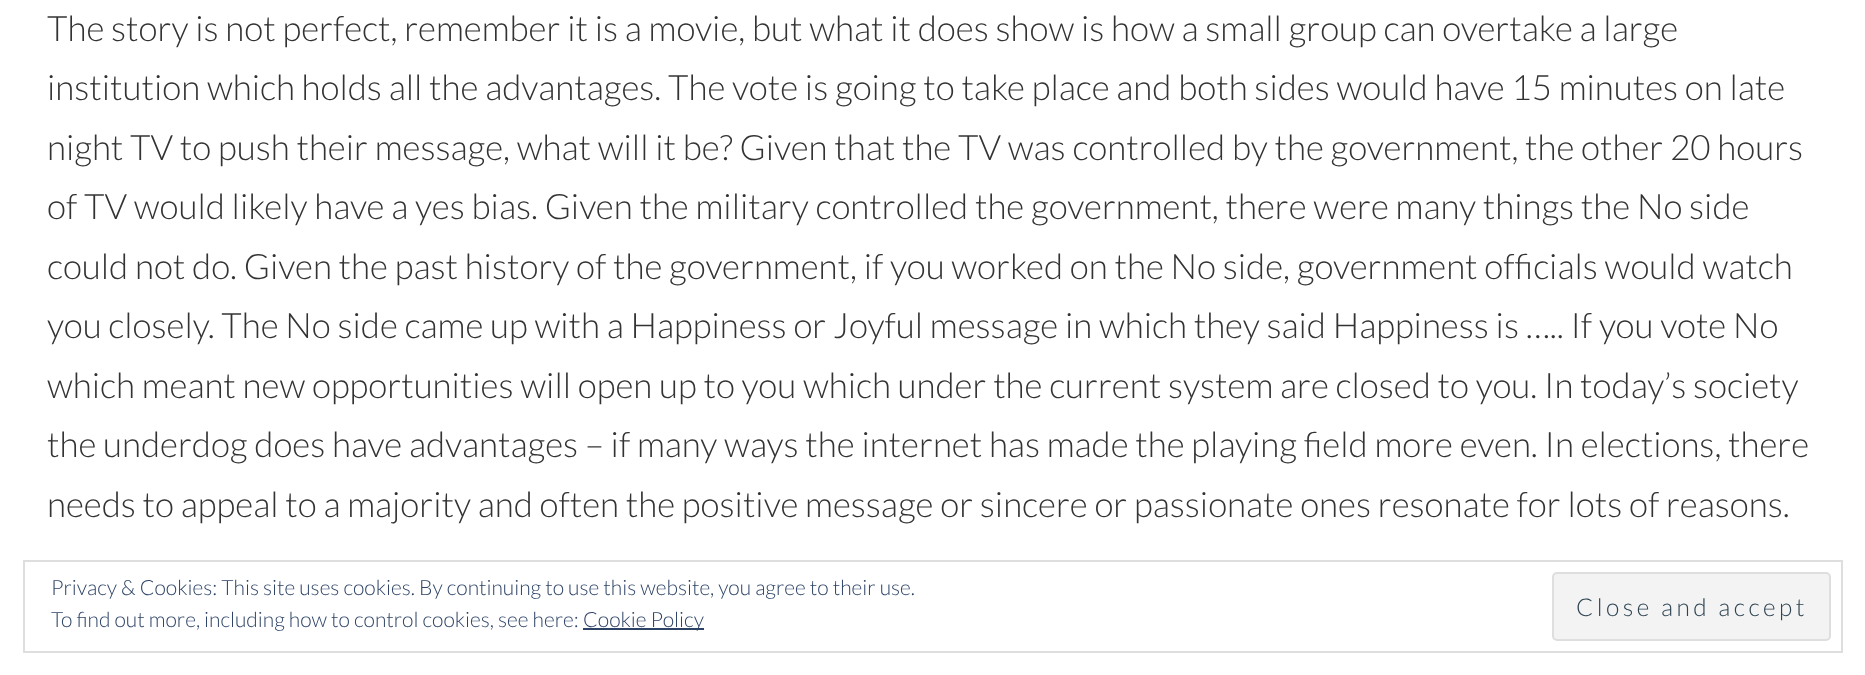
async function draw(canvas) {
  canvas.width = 1865
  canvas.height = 675
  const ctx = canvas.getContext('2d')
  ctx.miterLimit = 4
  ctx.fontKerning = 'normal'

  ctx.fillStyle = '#fff'
  ctx.fillRect(0, 0, 1865, 675)
  ctx.font = '300 35px Lato'
  ctx.fillStyle = '#333'
  ctx.fillText('The story is not perfect, remember it is a movie, but what it does show is how a small group can overtake a large', 47, 41)
  ctx.fillText('institution which holds all the advantages. The vote is going to take place and both sides would have 15 minutes on late', 47, 100)
  ctx.fillText('night TV to push their message, what will it be? Given that the TV was controlled by the government, the other 20 hours', 47, 160)
  ctx.fillText('of TV would likely have a yes bias. Given the military controlled the government, there were many things the No side', 47, 219)
  ctx.fillText('could not do. Given the past history of the government, if you worked on the No side, government officials would watch', 47, 279)
  ctx.fillText('you closely. The No side came up with a Happiness or Joyful message in which they said Happiness is ….. If you vote No', 47, 338)
  ctx.fillText('which meant new opportunities will open up to you which under the current system are closed to you. In today’s society', 47, 398)
  ctx.fillText('the underdog does have advantages – if many ways the internet has made the playing field more even. In elections, there', 47, 457)
  ctx.fillText('needs to appeal to a majority and often the positive message or sincere or passionate ones resonate for lots of reasons.', 47, 517)
  ctx.strokeStyle = '#dedede'
  ctx.lineWidth = 2
  ctx.strokeRect(24, 561, 1818, 91)
  ctx.font = '300 21px Lato'
  ctx.fillStyle = '#2e4467'
  ctx.fillText('Privacy & Cookies: This site uses cookies. By continuing to use this website, you agree to their use.', 51, 595)
  ctx.fillText('To find out more, including how to control cookies, see here:', 51, 627)
  ctx.fillRect(583, 628, 121, 2)
  ctx.fillText('Cookie Policy', 583, 627)
  ctx.fillStyle = '#f3f3f3'
  ctx.beginPath()
  ctx.roundRect(1553, 573, 277, 67, 4)
  ctx.fill()
  ctx.stroke()
  ctx.letterSpacing = '3.5px'
  ctx.font = '300 24.5px Lato'
  ctx.fillStyle = '#2e4453'
  ctx.fillText('Close and accept', 1576, 616)
}

draw(document.querySelector('canvas'))
